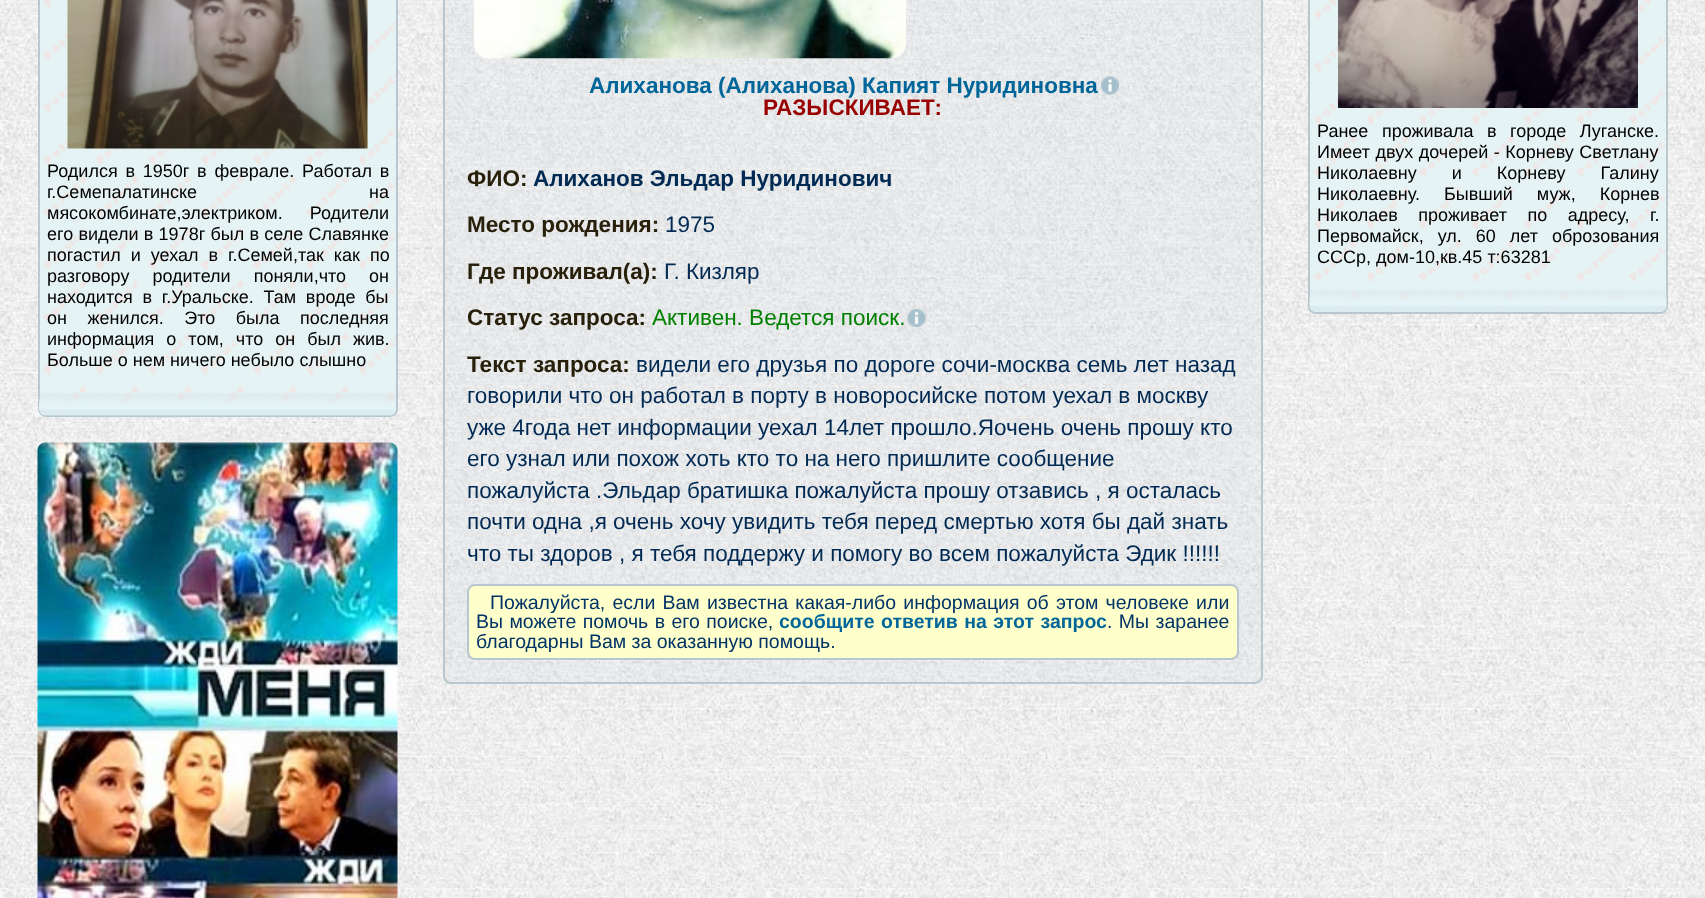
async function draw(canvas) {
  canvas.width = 1705
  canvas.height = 898
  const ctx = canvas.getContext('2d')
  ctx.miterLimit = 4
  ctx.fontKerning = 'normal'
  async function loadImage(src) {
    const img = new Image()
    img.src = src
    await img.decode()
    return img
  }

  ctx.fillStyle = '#fff'
  ctx.fillRect(0, 0, 1705, 898)
  ctx.drawImage(await loadImage('image0.png'), 0, 0, 1705, 898)
  ctx.drawImage(await loadImage('image1.png'), 37, 0, 361, 417)
  ctx.beginPath()
  ctx.roundRect(39, -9, 358, 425, 7)
  ctx.strokeStyle = '#b8c6cf'
  ctx.lineWidth = 2
  ctx.stroke()
  ctx.fillStyle = '#cdd5db33'
  ctx.fillRect(39, 0, 357, 161)
  ctx.drawImage(await loadImage('image2.png'), 67, 0, 301, 149)
  ctx.beginPath()
  ctx.roundRect(39, 161, 357, 255, [0, 0, 6, 6])
  ctx.fill()
  ctx.wordSpacing = '2.75px'
  ctx.font = '18px Liberation Sans'
  ctx.fillStyle = '#000'
  ctx.fillText('Родился в 1950г в феврале. Работал в', 47, 177)
  ctx.wordSpacing = '167px'
  ctx.fillText('г.Семепалатинске на', 47, 198)
  ctx.wordSpacing = '22px'
  ctx.fillText('мясокомбинате,электриком. Родители', 47, 219)
  ctx.wordSpacing = '0.25px'
  ctx.fillText('его видели в 1978г был в селе Славянке', 47, 240)
  ctx.wordSpacing = '5px'
  ctx.fillText('погастил и уехал в г.Семей,так как по', 47, 261)
  ctx.wordSpacing = '18px'
  ctx.fillText('разговору родители поняли,что он', 47, 282)
  ctx.wordSpacing = '4.75px'
  ctx.fillText('находится в г.Уральске. Там вроде бы', 47, 303)
  ctx.wordSpacing = '15.5px'
  ctx.fillText('он женился. Это была последняя', 47, 324)
  ctx.wordSpacing = '7px'
  ctx.fillText('информация о том, что он был жив.', 47, 345)
  ctx.wordSpacing = '0px'
  ctx.fillText('Больше о нем ничего небыло слышно', 47, 366)
  ctx.fillStyle = '#cdd5db33'
  ctx.beginPath()
  ctx.roundRect(39, 393, 357, 23, [0, 0, 6, 6])
  ctx.fill()
  ctx.drawImage(await loadImage('image3.png'), 39, 393, 357, 23)
  ctx.drawImage(await loadImage('image4.png'), 37, 442, 361, 456)
  ctx.beginPath()
  ctx.roundRect(444, -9, 818, 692, 7)
  ctx.fill()
  ctx.stroke()
  ctx.drawImage(await loadImage('image5.png'), 474, 0, 432, 59)
  ctx.font = 'bold 22.5px Liberation Sans'
  ctx.fillStyle = '#069'
  ctx.fillText('Алиханова (Алиханова) Капият Нуридиновна', 589, 93)
  ctx.drawImage(await loadImage('image6.png'), 1101, 76, 18, 19)
  ctx.fillStyle = '#900'
  ctx.fillText('РАЗЫСКИВАЕТ:', 763, 115)
  ctx.fillStyle = '#28200b'
  ctx.fillText('ФИО:', 467, 186)
  ctx.fillStyle = '#002953'
  ctx.fillText('Алиханов Эльдар Нуридинович', 533, 186)
  ctx.fillStyle = '#28200b'
  ctx.fillText('Место рождения:', 467, 232)
  ctx.font = '22.5px Liberation Sans'
  ctx.fillStyle = '#002953'
  ctx.fillText('1975', 665, 232)
  ctx.font = 'bold 22.5px Liberation Sans'
  ctx.fillStyle = '#28200b'
  ctx.fillText('Где проживал(а):', 467, 279)
  ctx.font = '22.5px Liberation Sans'
  ctx.fillStyle = '#002953'
  ctx.fillText('Г. Кизляр', 664, 279)
  ctx.font = 'bold 22.5px Liberation Sans'
  ctx.fillStyle = '#28200b'
  ctx.fillText('Статус запроса:', 467, 325)
  ctx.font = '22.5px Liberation Sans'
  ctx.fillStyle = '#008000'
  ctx.fillText('Активен. Ведется поиск.', 652, 325)
  ctx.drawImage(await loadImage('image7.png'), 907, 309, 19, 18)
  ctx.font = 'bold 22.5px Liberation Sans'
  ctx.fillStyle = '#28200b'
  ctx.fillText('Текст запроса:', 467, 372)
  ctx.font = '22.5px Liberation Sans'
  ctx.fillStyle = '#002953'
  ctx.fillText('видели его друзья по дороге сочи-москва семь лет назад', 636, 372)
  ctx.fillText('говорили что он работал в порту в новоросийске потом уехал в москву', 467, 403)
  ctx.fillText('уже 4года нет информации уехал 14лет прошло.Яочень очень прошу кто', 467, 435)
  ctx.fillText('его узнал или похож хоть кто то на него пришлите сообщение', 467, 466)
  ctx.fillText('пожалуйста .Эльдар братишка пожалуйста прошу отзавись , я осталась', 467, 498)
  ctx.fillText('почти одна ,я очень хочу увидить тебя перед смертью хотя бы дай знать', 467, 529)
  ctx.fillText('что ты здоров , я тебя поддержу и помогу во всем пожалуйста Эдик !!!!!!', 467, 561)
  ctx.fillStyle = '#ffc'
  ctx.beginPath()
  ctx.roundRect(468, 585, 770, 74, 7)
  ctx.fill()
  ctx.stroke()
  ctx.wordSpacing = '1.75px'
  ctx.font = '19.5px Liberation Sans'
  ctx.fillStyle = '#036'
  ctx.fillText('Пожалуйста, если Вам известна какая-либо информация об этом человеке или', 490, 609)
  ctx.wordSpacing = '1px'
  ctx.fillText('Вы можете помочь в его поиске,', 476, 628)
  ctx.font = 'bold 19.5px Liberation Sans'
  ctx.fillStyle = '#069'
  ctx.fillText('сообщите ответив на этот запрос', 779, 628)
  ctx.font = '19.5px Liberation Sans'
  ctx.fillStyle = '#036'
  ctx.fillText('. Мы заранее', 1107, 628)
  ctx.wordSpacing = '0px'
  ctx.fillText('благодарны Вам за оказанную помощь.', 476, 648)
  ctx.drawImage(await loadImage('image8.png'), 1308, 0, 360, 314)
  ctx.beginPath()
  ctx.roundRect(1309, -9, 358, 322, 7)
  ctx.stroke()
  ctx.fillStyle = '#cdd5db33'
  ctx.fillRect(1310, 0, 357, 120)
  ctx.drawImage(await loadImage('image9.png'), 1338, 0, 300, 108)
  ctx.beginPath()
  ctx.roundRect(1310, 120, 357, 192, [0, 0, 6, 6])
  ctx.fill()
  ctx.wordSpacing = '8.5px'
  ctx.font = '18px Liberation Sans'
  ctx.fillStyle = '#000'
  ctx.fillText('Ранее проживала в городе Луганске.', 1317, 137)
  ctx.wordSpacing = '0.5px'
  ctx.fillText('Имеет двух дочерей - Корневу Светлану', 1317, 158)
  ctx.wordSpacing = '30px'
  ctx.fillText('Николаевну и Корневу Галину', 1317, 179)
  ctx.wordSpacing = '19px'
  ctx.fillText('Николаевну. Бывший муж, Корнев', 1317, 200)
  ctx.wordSpacing = '15.5px'
  ctx.fillText('Николаев проживает по адресу, г.', 1317, 221)
  ctx.wordSpacing = '9px'
  ctx.fillText('Первомайск, ул. 60 лет оброзования', 1317, 242)
  ctx.wordSpacing = '0px'
  ctx.fillText('СССр, дом-10,кв.45 т:63281', 1317, 263)
  ctx.fillStyle = '#cdd5db33'
  ctx.beginPath()
  ctx.roundRect(1310, 290, 357, 22, [0, 0, 6, 6])
  ctx.fill()
  ctx.drawImage(await loadImage('image10.png'), 1309, 289, 358, 23)
}

draw(document.querySelector('canvas'))
